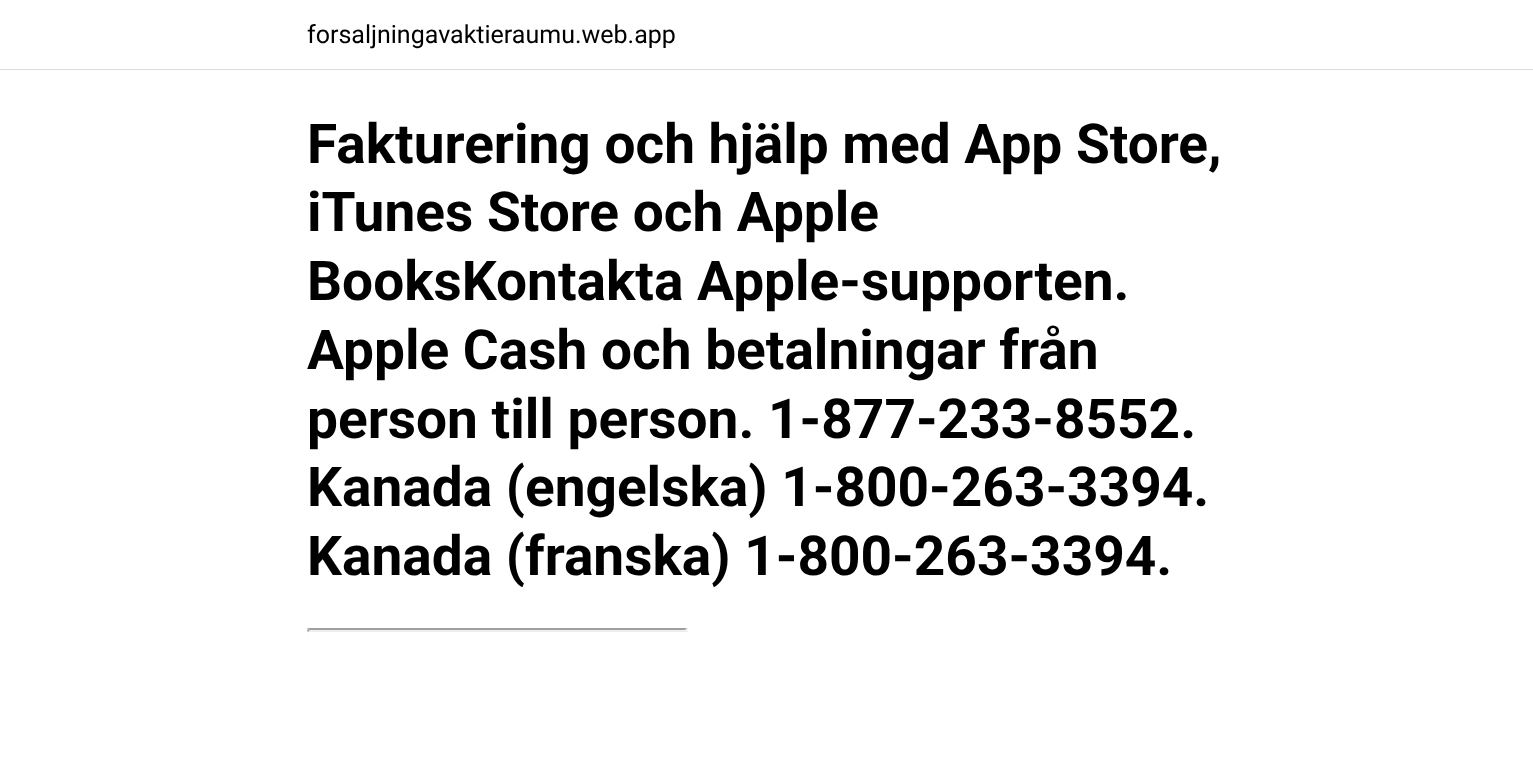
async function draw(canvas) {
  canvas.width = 1533
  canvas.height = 775
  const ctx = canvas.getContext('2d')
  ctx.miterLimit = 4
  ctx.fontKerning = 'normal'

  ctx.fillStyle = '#fff'
  ctx.fillRect(0, 0, 1533, 775)
  ctx.fillStyle = '#dbdbdb'
  ctx.fillRect(0, 69, 1533, 1)
  ctx.font = '25px Roboto'
  ctx.fillStyle = '#000'
  ctx.fillText('forsaljningavaktieraumu.web.app', 307, 43)
  ctx.font = 'bold 55px Roboto'
  ctx.fillText('Fakturering och hjälp med App Store,', 307, 163)
  ctx.fillText('iTunes Store och Apple', 307, 231)
  ctx.fillText('BooksKontakta Apple-supporten.', 307, 300)
  ctx.fillText('Apple Cash och betalningar från', 307, 369)
  ctx.fillText('person till person. 1-877-233-8552.', 307, 438)
  ctx.fillText('Kanada (engelska) 1-800-263-3394.', 307, 506)
  ctx.fillText('Kanada (franska) 1-800-263-3394.', 307, 575)
  ctx.fillStyle = '#9f9f9f'
  ctx.beginPath()
  ctx.moveTo(308, 628)
  ctx.lineTo(688, 628)
  ctx.lineTo(685, 630)
  ctx.lineTo(310, 630)
  ctx.closePath()
  ctx.fill()
  ctx.fillStyle = '#eee'
  ctx.beginPath()
  ctx.moveTo(687.5, 627.5)
  ctx.lineTo(687.5, 632.5)
  ctx.lineTo(685, 630)
  ctx.closePath()
  ctx.fill()
  ctx.beginPath()
  ctx.moveTo(688, 632)
  ctx.lineTo(308, 632)
  ctx.lineTo(310, 630)
  ctx.lineTo(685, 630)
  ctx.closePath()
  ctx.fill()
  ctx.fillStyle = '#9f9f9f'
  ctx.beginPath()
  ctx.moveTo(307.5, 632.5)
  ctx.lineTo(307.5, 627.5)
  ctx.lineTo(310, 630)
  ctx.closePath()
  ctx.fill()
}

draw(document.querySelector('canvas'))
